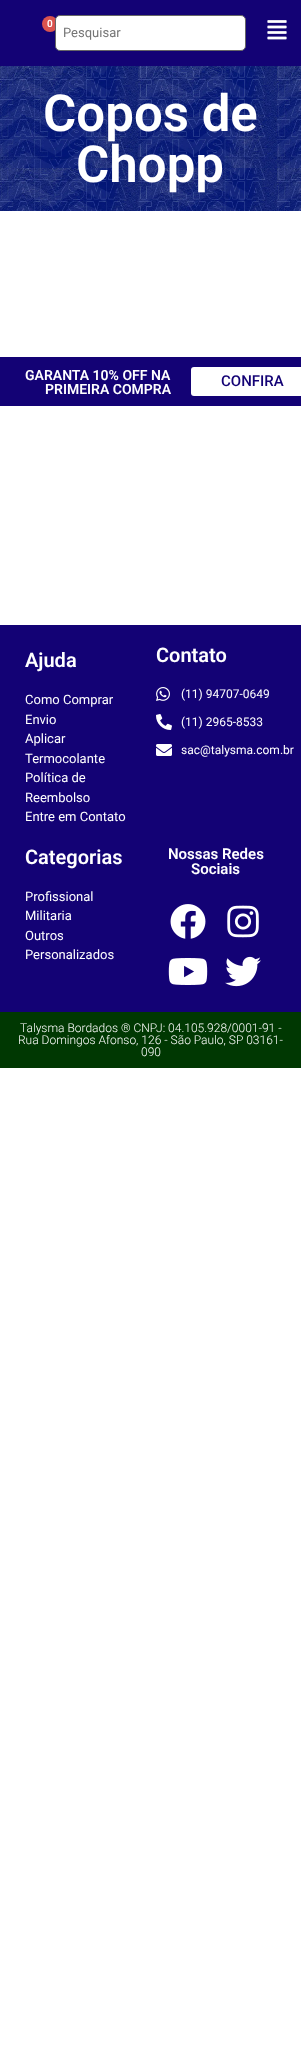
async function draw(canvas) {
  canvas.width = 301
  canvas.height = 2048
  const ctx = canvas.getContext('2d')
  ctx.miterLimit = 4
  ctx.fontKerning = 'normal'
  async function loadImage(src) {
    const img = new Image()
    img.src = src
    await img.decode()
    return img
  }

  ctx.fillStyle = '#fff'
  ctx.fillRect(0, 0, 301, 2048)
  ctx.fillStyle = '#130275'
  ctx.fillRect(0, 0, 301, 66)
  ctx.fillStyle = '#d9534f'
  ctx.beginPath()
  ctx.arc(50, 24, 8, 0, 2 * Math.PI)
  ctx.fill()
  ctx.font = '600 10px Roboto'
  ctx.fillStyle = '#fff'
  ctx.fillText('0', 47, 27)
  ctx.beginPath()
  ctx.roundRect(55.5, 15.5, 190, 35, 4.5)
  ctx.fill()
  ctx.strokeStyle = '#666'
  ctx.stroke()
  ctx.font = '13px Roboto'
  ctx.fillStyle = '#757575'
  ctx.fillText('Pesquisar', 63, 37)
  ctx.drawImage(await loadImage('image0.png'), 267, 20, 20, 20)
  ctx.drawImage(await loadImage('image1.png'), 0, 66, 301, 145)
  ctx.font = '600 51px Roboto'
  ctx.fillStyle = '#fff'
  ctx.fillText('Copos de', 43, 131)
  ctx.fillText('Chopp', 76, 182)
  ctx.fillStyle = '#130275'
  ctx.fillRect(0, 357, 301, 49)
  ctx.font = '600 14px Roboto'
  ctx.fillStyle = '#fff'
  ctx.fillText('GARANTA 10% OFF NA', 25, 380)
  ctx.fillText('PRIMEIRA COMPRA', 45, 394)
  ctx.beginPath()
  ctx.roundRect(191, 367, 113, 29, 3)
  ctx.fill()
  ctx.font = '500 15px Roboto'
  ctx.fillStyle = '#130275'
  ctx.fillText('CONFIRA', 221, 386)
  ctx.fillRect(0, 625, 301, 387)
  ctx.font = '600 20px Roboto'
  ctx.fillStyle = '#fff'
  ctx.fillText('Ajuda', 25, 667)
  ctx.font = '13px Roboto'
  ctx.fillText('Como Comprar', 25, 704)
  ctx.fillText('Envio', 25, 724)
  ctx.fillText('Aplicar', 25, 743)
  ctx.fillText('Termocolante', 25, 763)
  ctx.fillText('Política de', 25, 782)
  ctx.fillText('Reembolso', 25, 802)
  ctx.fillText('Entre em Contato', 25, 821)
  ctx.font = '600 20px Roboto'
  ctx.fillText('Contato', 156, 662)
  ctx.drawImage(await loadImage('image2.png'), 156, 687, 14, 14)
  ctx.font = '12px Roboto'
  ctx.fillText('(11) 94707-0649', 181, 698)
  ctx.drawImage(await loadImage('image3.png'), 156, 714, 16, 16)
  ctx.fillText('(11) 2965-8533', 181, 726)
  ctx.drawImage(await loadImage('image4.png'), 156, 744, 16, 12)
  ctx.fillText('sac@talysma.com.br', 181, 754)
  ctx.font = '600 20px Roboto'
  ctx.fillText('Categorias', 25, 864)
  ctx.font = '13px Roboto'
  ctx.fillText('Profissional', 25, 901)
  ctx.fillText('Militaria', 25, 920)
  ctx.fillText('Outros', 25, 940)
  ctx.fillText('Personalizados', 25, 959)
  ctx.font = '600 15px Roboto'
  ctx.fillText('Nossas Redes', 168, 859)
  ctx.fillText('Sociais', 191, 874)
  ctx.drawImage(await loadImage('image5.png'), 170, 904, 36, 35)
  ctx.drawImage(await loadImage('image6.png'), 227, 905, 32, 33)
  ctx.drawImage(await loadImage('image7.png'), 168, 958, 40, 27)
  ctx.drawImage(await loadImage('image8.png'), 225, 956, 36, 31)
  ctx.fillStyle = '#003802'
  ctx.fillRect(0, 1012, 301, 56)
  ctx.font = '300 12px Roboto'
  ctx.fillStyle = '#fff'
  ctx.fillText('Talysma Bordados ® CNPJ: 04.105.928/0001-91 -', 20, 1032)
  ctx.fillText('Rua Domingos Afonso, 126 - São Paulo, SP 03161-', 18, 1044)
  ctx.fillText('090', 141, 1056)
}

draw(document.querySelector('canvas'))
